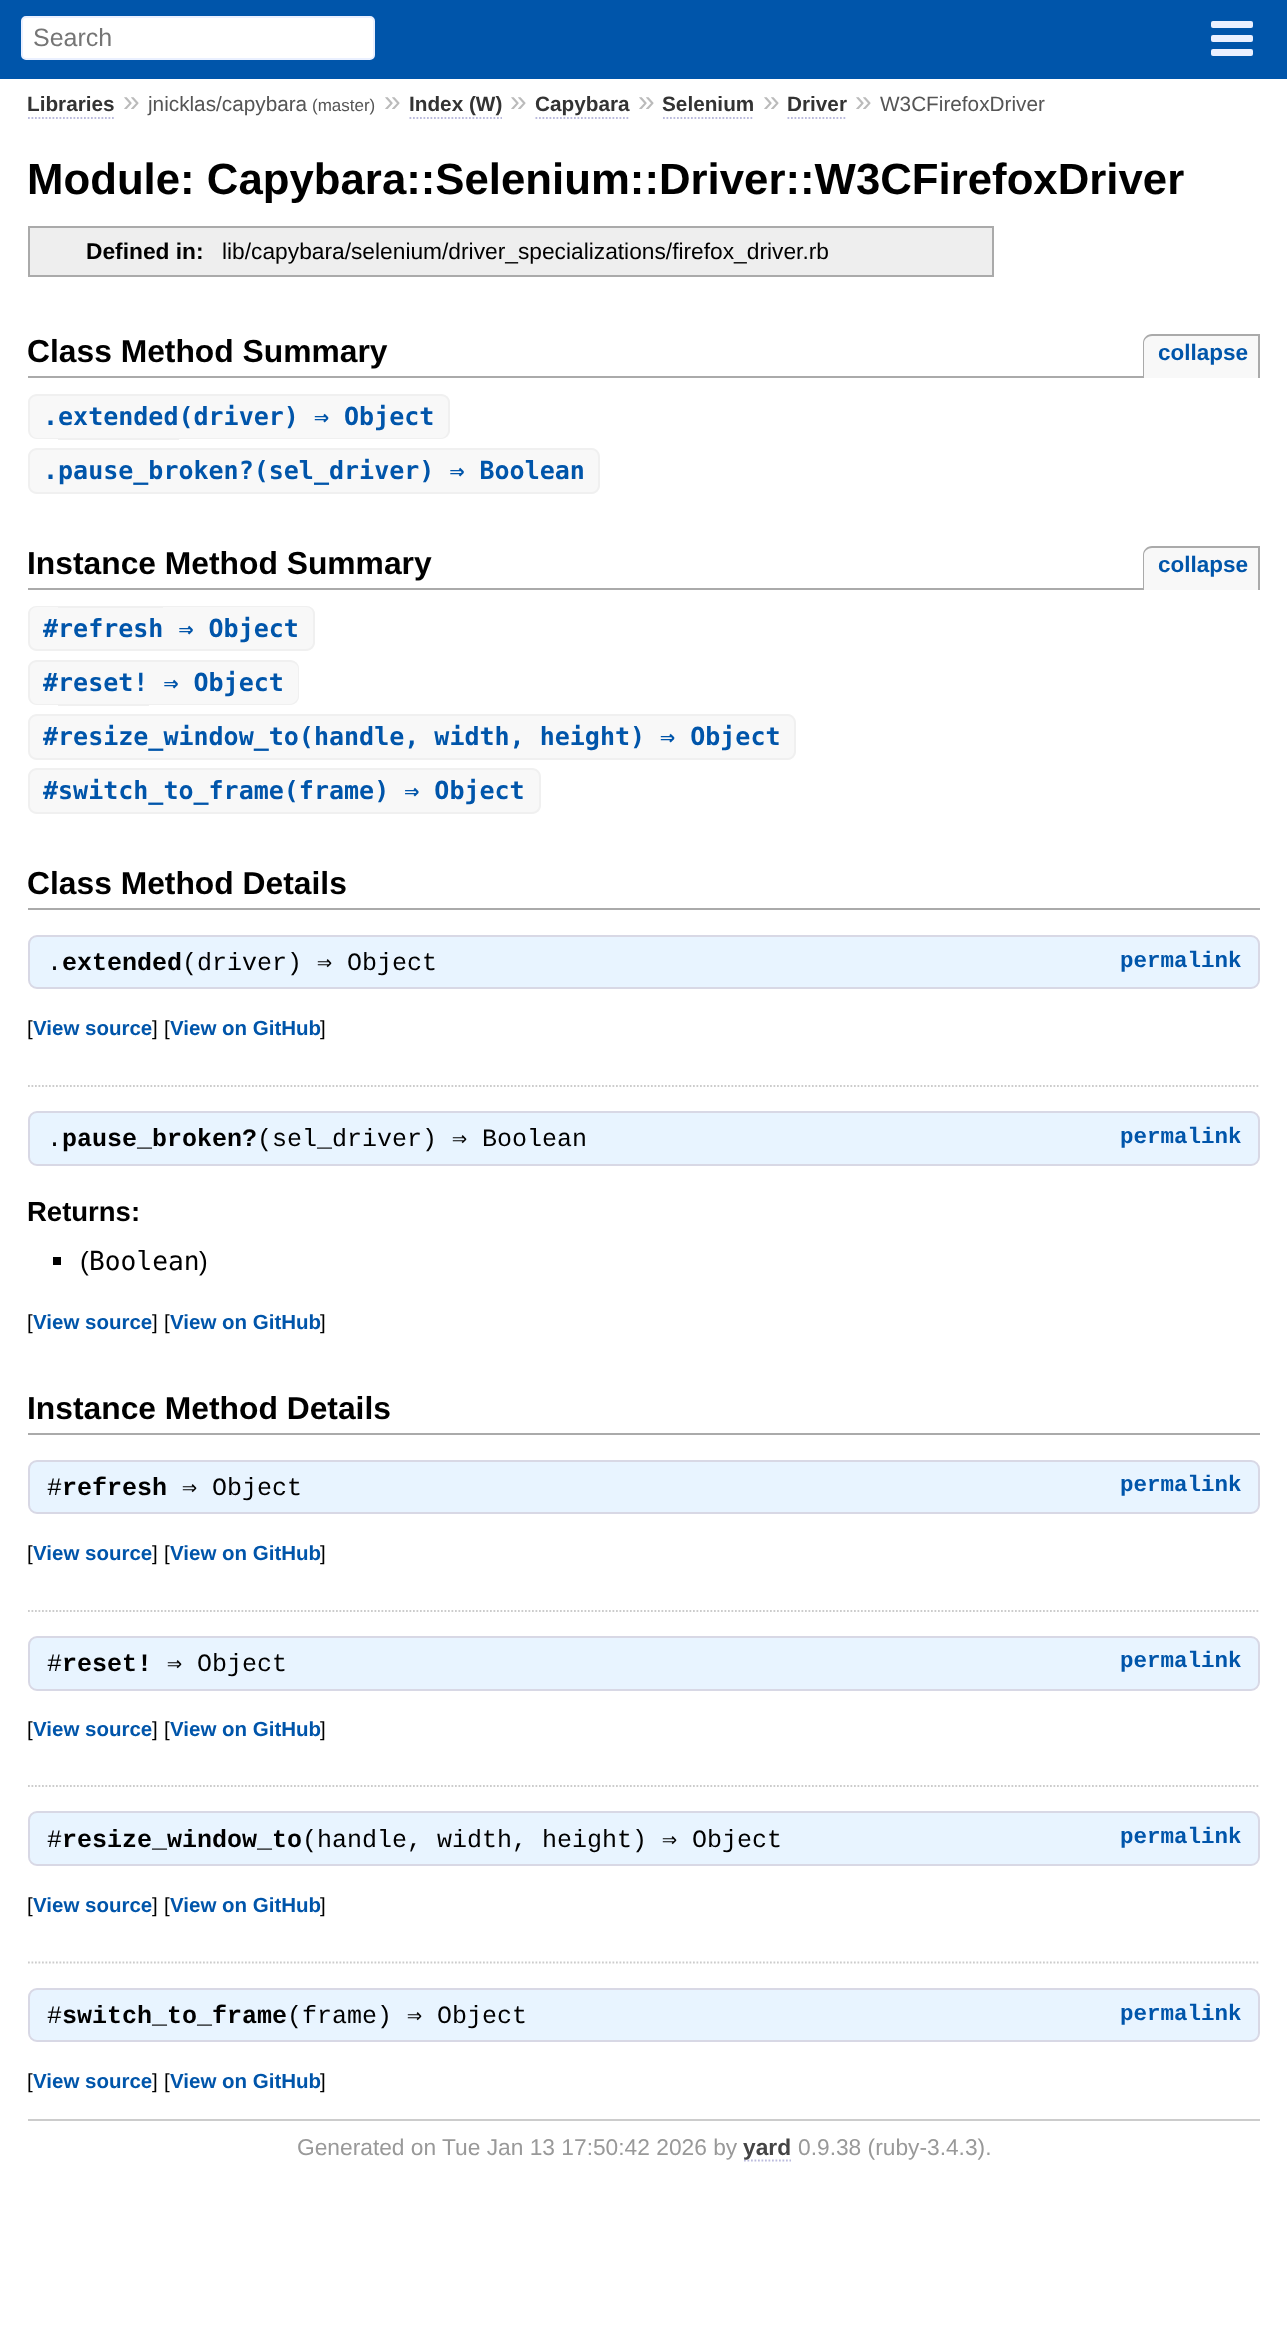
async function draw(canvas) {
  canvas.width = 1287
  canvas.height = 2336
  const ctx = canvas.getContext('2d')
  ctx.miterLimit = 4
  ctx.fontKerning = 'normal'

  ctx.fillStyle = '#fff'
  ctx.fillRect(0, 0, 1287, 2336)
  ctx.fillStyle = '#05a'
  ctx.fillRect(0, 0, 1287, 79)
  ctx.fillStyle = '#fff'
  ctx.beginPath()
  ctx.roundRect(22, 17, 352, 42, 4)
  ctx.fill()
  ctx.strokeStyle = '#eaf0ff'
  ctx.lineWidth = 2
  ctx.stroke()
  ctx.font = '25px Liberation Sans'
  ctx.fillStyle = '#757575'
  ctx.fillText('Search', 33, 46)
  ctx.fillStyle = '#eaf0ff'
  ctx.beginPath()
  ctx.roundRect(1211, 21, 42, 7, 2)
  ctx.fill()
  ctx.beginPath()
  ctx.roundRect(1211, 35, 42, 7, 2)
  ctx.fill()
  ctx.beginPath()
  ctx.roundRect(1211, 49, 42, 7, 2)
  ctx.fill()
  ctx.font = 'bold 20.75px Liberation Sans'
  ctx.fillStyle = '#333'
  ctx.fillText('Libraries', 27, 111)
  ctx.beginPath()
  ctx.moveTo(28, 118)
  ctx.lineTo(115.5, 118)
  ctx.strokeStyle = '#bbd'
  ctx.lineWidth = 1.8
  ctx.setLineDash([1.75, 1.75])
  ctx.stroke()
  ctx.font = '30px Liberation Sans'
  ctx.fillStyle = '#bbb'
  ctx.fillText('»', 123, 111)
  ctx.font = '20.75px Liberation Sans'
  ctx.fillStyle = '#555'
  ctx.fillText('jnicklas/capybara', 148, 111)
  ctx.font = '17px Liberation Sans'
  ctx.fillText('(master)', 312, 111)
  ctx.font = '30px Liberation Sans'
  ctx.fillStyle = '#bbb'
  ctx.fillText('»', 384, 111)
  ctx.font = 'bold 20.75px Liberation Sans'
  ctx.fillStyle = '#333'
  ctx.fillText('Index (W)', 409, 111)
  ctx.beginPath()
  ctx.moveTo(409.5, 118)
  ctx.lineTo(502, 118)
  ctx.stroke()
  ctx.font = '30px Liberation Sans'
  ctx.fillStyle = '#bbb'
  ctx.fillText('»', 510, 111)
  ctx.font = 'bold 20.75px Liberation Sans'
  ctx.fillStyle = '#333'
  ctx.fillText('Capybara', 535, 111)
  ctx.beginPath()
  ctx.moveTo(535.5, 118)
  ctx.lineTo(630, 118)
  ctx.stroke()
  ctx.font = '30px Liberation Sans'
  ctx.fillStyle = '#bbb'
  ctx.fillText('»', 638, 111)
  ctx.font = 'bold 20.75px Liberation Sans'
  ctx.fillStyle = '#333'
  ctx.fillText('Selenium', 662, 111)
  ctx.beginPath()
  ctx.moveTo(663, 118)
  ctx.lineTo(754, 118)
  ctx.stroke()
  ctx.font = '30px Liberation Sans'
  ctx.fillStyle = '#bbb'
  ctx.fillText('»', 763, 111)
  ctx.font = 'bold 20.75px Liberation Sans'
  ctx.fillStyle = '#333'
  ctx.fillText('Driver', 787, 111)
  ctx.beginPath()
  ctx.moveTo(787.5, 118)
  ctx.lineTo(847, 118)
  ctx.stroke()
  ctx.font = '30px Liberation Sans'
  ctx.fillStyle = '#bbb'
  ctx.fillText('»', 855, 111)
  ctx.font = '20.75px Liberation Sans'
  ctx.fillStyle = '#555'
  ctx.fillText('W3CFirefoxDriver', 880, 111)
  ctx.font = 'bold 43.75px Liberation Sans'
  ctx.fillStyle = '#000'
  ctx.fillText('Module: Capybara::Selenium::Driver::W3CFirefoxDriver', 27, 194)
  ctx.fillStyle = '#eee'
  ctx.fillRect(30, 228, 962, 47)
  ctx.fillStyle = '#aaa'
  ctx.fillRect(28, 226, 966, 2)
  ctx.fillRect(28, 275, 194, 2)
  ctx.fillRect(28, 226, 2, 51)
  ctx.font = 'bold 22.75px Liberation Sans'
  ctx.fillStyle = '#000'
  ctx.fillText('Defined in:', 86, 259)
  ctx.fillStyle = '#aaa'
  ctx.fillRect(992, 226, 2, 51)
  ctx.fillRect(222, 275, 772, 2)
  ctx.font = '22.75px Liberation Sans'
  ctx.fillStyle = '#000'
  ctx.fillText('lib/capybara/selenium/driver_specializations/firefox_driver.rb', 222, 259)
  ctx.fillStyle = '#aaa'
  ctx.fillRect(28, 376, 1115, 2)
  ctx.font = 'bold 31.8px Liberation Sans'
  ctx.fillStyle = '#000'
  ctx.fillText('Class Method Summary', 27, 362)
  ctx.fillStyle = '#f8f8f8'
  ctx.beginPath()
  ctx.roundRect(1143, 334, 117, 44, [9, 0, 0, 0])
  ctx.fill()
  ctx.fillStyle = '#aaa'
  ctx.beginPath()
  ctx.moveTo(1152, 334)
  ctx.lineTo(1260, 334)
  ctx.lineTo(1260, 378)
  ctx.lineTo(1143, 378)
  ctx.lineTo(1143, 343)
  ctx.bezierCurveTo(1143, 338, 1147, 334, 1152, 334)
  ctx.closePath()
  ctx.moveTo(1152, 336)
  ctx.lineTo(1258, 336)
  ctx.lineTo(1258, 378)
  ctx.lineTo(1144, 378)
  ctx.lineTo(1144, 343)
  ctx.bezierCurveTo(1144, 339, 1148, 336, 1152, 336)
  ctx.closePath()
  ctx.fill('evenodd')
  ctx.font = 'bold 22.5px Liberation Sans'
  ctx.fillStyle = '#05a'
  ctx.fillText('collapse', 1158, 360)
  ctx.fillStyle = '#f8f8f8'
  ctx.beginPath()
  ctx.roundRect(28, 394, 30, 45, [9, 0, 0, 9])
  ctx.fill()
  ctx.fillStyle = '#f0f0f0'
  ctx.beginPath()
  ctx.moveTo(37, 394)
  ctx.lineTo(58, 394)
  ctx.lineTo(58, 439)
  ctx.lineTo(37, 439)
  ctx.bezierCurveTo(32, 439, 28, 435, 28, 430)
  ctx.lineTo(28, 402)
  ctx.bezierCurveTo(28, 398, 32, 394, 37, 394)
  ctx.closePath()
  ctx.moveTo(37, 396)
  ctx.lineTo(58, 396)
  ctx.lineTo(58, 438)
  ctx.lineTo(37, 438)
  ctx.bezierCurveTo(33, 438, 30, 434, 30, 430)
  ctx.lineTo(30, 402)
  ctx.bezierCurveTo(30, 399, 33, 396, 37, 396)
  ctx.closePath()
  ctx.fill('evenodd')
  ctx.fillStyle = '#f8f8f8'
  ctx.fillRect(58, 396, 121, 42)
  ctx.beginPath()
  ctx.roundRect(179, 394, 271, 45, [0, 9, 9, 0])
  ctx.fill()
  ctx.fillStyle = '#f0f0f0'
  ctx.fillRect(58, 394, 121, 2)
  ctx.fillRect(58, 438, 121, 2)
  ctx.beginPath()
  ctx.moveTo(178, 394)
  ctx.lineTo(441, 394)
  ctx.bezierCurveTo(446, 394, 450, 398, 450, 402)
  ctx.lineTo(450, 430)
  ctx.bezierCurveTo(450, 435, 446, 439, 441, 439)
  ctx.lineTo(178, 439)
  ctx.closePath()
  ctx.moveTo(178, 396)
  ctx.lineTo(441, 396)
  ctx.bezierCurveTo(445, 396, 448, 399, 448, 402)
  ctx.lineTo(448, 430)
  ctx.bezierCurveTo(448, 434, 445, 438, 441, 438)
  ctx.lineTo(178, 438)
  ctx.closePath()
  ctx.fill('evenodd')
  ctx.font = 'bold 25px DejaVu Sans Mono'
  ctx.fillStyle = '#05a'
  ctx.fillText('.extended(driver) ⇒ Object', 43, 425)
  ctx.fillStyle = '#f8f8f8'
  ctx.beginPath()
  ctx.roundRect(28, 448, 30, 46, [9, 0, 0, 9])
  ctx.fill()
  ctx.fillStyle = '#f0f0f0'
  ctx.beginPath()
  ctx.moveTo(37, 448)
  ctx.lineTo(58, 448)
  ctx.lineTo(58, 494)
  ctx.lineTo(37, 494)
  ctx.bezierCurveTo(32, 494, 28, 490, 28, 485)
  ctx.lineTo(28, 457)
  ctx.bezierCurveTo(28, 452, 32, 448, 37, 448)
  ctx.closePath()
  ctx.moveTo(37, 450)
  ctx.lineTo(58, 450)
  ctx.lineTo(58, 492)
  ctx.lineTo(37, 492)
  ctx.bezierCurveTo(33, 492, 30, 489, 30, 485)
  ctx.lineTo(30, 457)
  ctx.bezierCurveTo(30, 453, 33, 450, 37, 450)
  ctx.closePath()
  ctx.fill('evenodd')
  ctx.fillStyle = '#f8f8f8'
  ctx.fillRect(58, 450, 196, 42)
  ctx.beginPath()
  ctx.roundRect(254, 448, 346, 46, [0, 9, 9, 0])
  ctx.fill()
  ctx.fillStyle = '#f0f0f0'
  ctx.beginPath()
  ctx.moveTo(254, 448)
  ctx.lineTo(592, 448)
  ctx.bezierCurveTo(596, 448, 600, 452, 600, 457)
  ctx.lineTo(600, 485)
  ctx.bezierCurveTo(600, 490, 596, 494, 592, 494)
  ctx.lineTo(254, 494)
  ctx.closePath()
  ctx.moveTo(254, 450)
  ctx.lineTo(592, 450)
  ctx.bezierCurveTo(595, 450, 598, 453, 598, 457)
  ctx.lineTo(598, 485)
  ctx.bezierCurveTo(598, 489, 595, 492, 592, 492)
  ctx.lineTo(254, 492)
  ctx.closePath()
  ctx.fill('evenodd')
  ctx.fillStyle = '#05a'
  ctx.fillText('.pause_broken?(sel_driver) ⇒ Boolean', 43, 479)
  ctx.fillStyle = '#f0f0f0'
  ctx.fillRect(58, 448, 196, 2)
  ctx.fillRect(58, 492, 196, 2)
  ctx.fillStyle = '#aaa'
  ctx.fillRect(28, 588, 1115, 2)
  ctx.font = 'bold 31.8px Liberation Sans'
  ctx.fillStyle = '#000'
  ctx.fillText('Instance Method Summary', 27, 574)
  ctx.fillStyle = '#f8f8f8'
  ctx.beginPath()
  ctx.roundRect(1143, 546, 117, 44, [9, 0, 0, 0])
  ctx.fill()
  ctx.fillStyle = '#aaa'
  ctx.beginPath()
  ctx.moveTo(1152, 546)
  ctx.lineTo(1260, 546)
  ctx.lineTo(1260, 590)
  ctx.lineTo(1143, 590)
  ctx.lineTo(1143, 555)
  ctx.bezierCurveTo(1143, 550, 1147, 546, 1152, 546)
  ctx.closePath()
  ctx.moveTo(1152, 548)
  ctx.lineTo(1258, 548)
  ctx.lineTo(1258, 590)
  ctx.lineTo(1144, 590)
  ctx.lineTo(1144, 555)
  ctx.bezierCurveTo(1144, 551, 1148, 548, 1152, 548)
  ctx.closePath()
  ctx.fill('evenodd')
  ctx.font = 'bold 22.5px Liberation Sans'
  ctx.fillStyle = '#05a'
  ctx.fillText('collapse', 1158, 572)
  ctx.fillStyle = '#f8f8f8'
  ctx.beginPath()
  ctx.roundRect(28, 606, 30, 45, [9, 0, 0, 9])
  ctx.fill()
  ctx.fillStyle = '#f0f0f0'
  ctx.beginPath()
  ctx.moveTo(37, 606)
  ctx.lineTo(58, 606)
  ctx.lineTo(58, 651)
  ctx.lineTo(37, 651)
  ctx.bezierCurveTo(32, 651, 28, 647, 28, 642)
  ctx.lineTo(28, 614)
  ctx.bezierCurveTo(28, 609, 32, 606, 37, 606)
  ctx.closePath()
  ctx.moveTo(37, 607)
  ctx.lineTo(58, 607)
  ctx.lineTo(58, 649)
  ctx.lineTo(37, 649)
  ctx.bezierCurveTo(33, 649, 30, 646, 30, 642)
  ctx.lineTo(30, 614)
  ctx.bezierCurveTo(30, 610, 33, 607, 37, 607)
  ctx.closePath()
  ctx.fill('evenodd')
  ctx.fillStyle = '#f8f8f8'
  ctx.fillRect(58, 608, 105, 41)
  ctx.beginPath()
  ctx.roundRect(163, 606, 152, 45, [0, 9, 9, 0])
  ctx.fill()
  ctx.fillStyle = '#f0f0f0'
  ctx.beginPath()
  ctx.moveTo(163, 606)
  ctx.lineTo(306, 606)
  ctx.bezierCurveTo(311, 606, 315, 609, 315, 614)
  ctx.lineTo(315, 642)
  ctx.bezierCurveTo(315, 647, 311, 651, 306, 651)
  ctx.lineTo(163, 651)
  ctx.closePath()
  ctx.moveTo(163, 607)
  ctx.lineTo(306, 607)
  ctx.bezierCurveTo(310, 607, 313, 610, 313, 614)
  ctx.lineTo(313, 642)
  ctx.bezierCurveTo(313, 646, 310, 649, 306, 649)
  ctx.lineTo(163, 649)
  ctx.closePath()
  ctx.fill('evenodd')
  ctx.font = 'bold 25px DejaVu Sans Mono'
  ctx.fillStyle = '#05a'
  ctx.fillText('#refresh ⇒ Object', 43, 637)
  ctx.fillStyle = '#f0f0f0'
  ctx.fillRect(58, 606, 105, 2)
  ctx.fillRect(58, 649, 105, 2)
  ctx.fillStyle = '#f8f8f8'
  ctx.beginPath()
  ctx.roundRect(28, 660, 30, 45, [9, 0, 0, 9])
  ctx.fill()
  ctx.fillStyle = '#f0f0f0'
  ctx.beginPath()
  ctx.moveTo(37, 660)
  ctx.lineTo(58, 660)
  ctx.lineTo(58, 705)
  ctx.lineTo(37, 705)
  ctx.bezierCurveTo(32, 705, 28, 701, 28, 696)
  ctx.lineTo(28, 668)
  ctx.bezierCurveTo(28, 664, 32, 660, 37, 660)
  ctx.closePath()
  ctx.moveTo(37, 662)
  ctx.lineTo(58, 662)
  ctx.lineTo(58, 704)
  ctx.lineTo(37, 704)
  ctx.bezierCurveTo(33, 704, 30, 700, 30, 696)
  ctx.lineTo(30, 668)
  ctx.bezierCurveTo(30, 665, 33, 662, 37, 662)
  ctx.closePath()
  ctx.fill('evenodd')
  ctx.fillStyle = '#f8f8f8'
  ctx.fillRect(58, 662, 91, 42)
  ctx.beginPath()
  ctx.roundRect(149, 660, 150, 45, [0, 9, 9, 0])
  ctx.fill()
  ctx.fillStyle = '#f0f0f0'
  ctx.beginPath()
  ctx.moveTo(149, 660)
  ctx.lineTo(290, 660)
  ctx.bezierCurveTo(295, 660, 299, 664, 299, 668)
  ctx.lineTo(299, 696)
  ctx.bezierCurveTo(299, 701, 295, 705, 290, 705)
  ctx.lineTo(149, 705)
  ctx.closePath()
  ctx.moveTo(149, 662)
  ctx.lineTo(290, 662)
  ctx.bezierCurveTo(294, 662, 298, 665, 298, 668)
  ctx.lineTo(298, 696)
  ctx.bezierCurveTo(298, 700, 294, 704, 290, 704)
  ctx.lineTo(149, 704)
  ctx.closePath()
  ctx.fill('evenodd')
  ctx.fillStyle = '#05a'
  ctx.fillText('#reset! ⇒ Object', 43, 691)
  ctx.fillStyle = '#f0f0f0'
  ctx.fillRect(58, 660, 91, 2)
  ctx.fillRect(58, 704, 91, 2)
  ctx.fillStyle = '#f8f8f8'
  ctx.beginPath()
  ctx.roundRect(28, 714, 30, 46, [9, 0, 0, 9])
  ctx.fill()
  ctx.fillStyle = '#f0f0f0'
  ctx.beginPath()
  ctx.moveTo(37, 714)
  ctx.lineTo(58, 714)
  ctx.lineTo(58, 760)
  ctx.lineTo(37, 760)
  ctx.bezierCurveTo(32, 760, 28, 756, 28, 751)
  ctx.lineTo(28, 723)
  ctx.bezierCurveTo(28, 718, 32, 714, 37, 714)
  ctx.closePath()
  ctx.moveTo(37, 716)
  ctx.lineTo(58, 716)
  ctx.lineTo(58, 758)
  ctx.lineTo(37, 758)
  ctx.bezierCurveTo(33, 758, 30, 755, 30, 751)
  ctx.lineTo(30, 723)
  ctx.bezierCurveTo(30, 719, 33, 716, 37, 716)
  ctx.closePath()
  ctx.fill('evenodd')
  ctx.fillStyle = '#f8f8f8'
  ctx.fillRect(58, 716, 241, 42)
  ctx.beginPath()
  ctx.roundRect(299, 714, 497, 46, [0, 9, 9, 0])
  ctx.fill()
  ctx.fillStyle = '#f0f0f0'
  ctx.beginPath()
  ctx.moveTo(299, 714)
  ctx.lineTo(788, 714)
  ctx.bezierCurveTo(792, 714, 796, 718, 796, 723)
  ctx.lineTo(796, 751)
  ctx.bezierCurveTo(796, 756, 792, 760, 788, 760)
  ctx.lineTo(299, 760)
  ctx.closePath()
  ctx.moveTo(299, 716)
  ctx.lineTo(788, 716)
  ctx.bezierCurveTo(791, 716, 794, 719, 794, 723)
  ctx.lineTo(794, 751)
  ctx.bezierCurveTo(794, 755, 791, 758, 788, 758)
  ctx.lineTo(299, 758)
  ctx.closePath()
  ctx.fill('evenodd')
  ctx.fillStyle = '#05a'
  ctx.fillText('#resize_window_to(handle, width, height) ⇒ Object', 43, 745)
  ctx.fillStyle = '#f0f0f0'
  ctx.fillRect(58, 714, 241, 2)
  ctx.fillRect(58, 758, 241, 2)
  ctx.fillStyle = '#f8f8f8'
  ctx.beginPath()
  ctx.roundRect(28, 768, 30, 46, [9, 0, 0, 9])
  ctx.fill()
  ctx.fillStyle = '#f0f0f0'
  ctx.beginPath()
  ctx.moveTo(37, 768)
  ctx.lineTo(58, 768)
  ctx.lineTo(58, 814)
  ctx.lineTo(37, 814)
  ctx.bezierCurveTo(32, 814, 28, 810, 28, 805)
  ctx.lineTo(28, 777)
  ctx.bezierCurveTo(28, 772, 32, 768, 37, 768)
  ctx.closePath()
  ctx.moveTo(37, 770)
  ctx.lineTo(58, 770)
  ctx.lineTo(58, 812)
  ctx.lineTo(37, 812)
  ctx.bezierCurveTo(33, 812, 30, 809, 30, 805)
  ctx.lineTo(30, 777)
  ctx.bezierCurveTo(30, 773, 33, 770, 37, 770)
  ctx.closePath()
  ctx.fill('evenodd')
  ctx.fillStyle = '#f8f8f8'
  ctx.fillRect(58, 770, 226, 42)
  ctx.beginPath()
  ctx.roundRect(284, 768, 257, 46, [0, 9, 9, 0])
  ctx.fill()
  ctx.fillStyle = '#f0f0f0'
  ctx.beginPath()
  ctx.moveTo(284, 768)
  ctx.lineTo(532, 768)
  ctx.bezierCurveTo(537, 768, 541, 772, 541, 777)
  ctx.lineTo(541, 805)
  ctx.bezierCurveTo(541, 810, 537, 814, 532, 814)
  ctx.lineTo(284, 814)
  ctx.closePath()
  ctx.moveTo(284, 770)
  ctx.lineTo(532, 770)
  ctx.bezierCurveTo(536, 770, 539, 773, 539, 777)
  ctx.lineTo(539, 805)
  ctx.bezierCurveTo(539, 809, 536, 812, 532, 812)
  ctx.lineTo(284, 812)
  ctx.closePath()
  ctx.fill('evenodd')
  ctx.fillStyle = '#05a'
  ctx.fillText('#switch_to_frame(frame) ⇒ Object', 43, 799)
  ctx.fillStyle = '#f0f0f0'
  ctx.fillRect(58, 768, 226, 2)
  ctx.fillRect(58, 812, 226, 2)
  ctx.fillStyle = '#aaa'
  ctx.fillRect(28, 908, 1232, 2)
  ctx.font = 'bold 31.8px Liberation Sans'
  ctx.fillStyle = '#000'
  ctx.fillText('Class Method Details', 27, 894)
  ctx.fillStyle = '#e8f4ff'
  ctx.beginPath()
  ctx.roundRect(29, 936, 1230, 52, 8)
  ctx.fill()
  ctx.strokeStyle = '#d8d8e5'
  ctx.lineWidth = 2
  ctx.setLineDash([])
  ctx.stroke()
  ctx.font = '25px Liberation Mono'
  ctx.fillStyle = '#000'
  ctx.fillText('.', 47, 970)
  ctx.font = 'bold 25px Liberation Mono'
  ctx.fillText('extended', 62, 970)
  ctx.font = '25px Liberation Mono'
  ctx.fillText('(driver)', 182, 970)
  ctx.font = '25px DejaVu Sans Mono'
  ctx.fillText('⇒', 317, 970)
  ctx.font = '25px Liberation Mono'
  ctx.fillText('Object', 347, 970)
  ctx.font = 'bold 22.5px Liberation Mono'
  ctx.fillStyle = '#05a'
  ctx.fillText('permalink', 1120, 967)
  ctx.font = '20.5px Liberation Sans'
  ctx.fillStyle = '#000'
  ctx.fillText('[', 27, 1035)
  ctx.font = 'bold 20.5px Liberation Sans'
  ctx.fillStyle = '#05a'
  ctx.fillText('View source', 33, 1035)
  ctx.font = '20.5px Liberation Sans'
  ctx.fillStyle = '#000'
  ctx.fillText(']', 152, 1035)
  ctx.fillText('[', 164, 1035)
  ctx.font = 'bold 20.5px Liberation Sans'
  ctx.fillStyle = '#05a'
  ctx.fillText('View on GitHub', 170, 1035)
  ctx.font = '20.5px Liberation Sans'
  ctx.fillStyle = '#000'
  ctx.fillText(']', 320, 1035)
  ctx.beginPath()
  ctx.moveTo(28, 1086)
  ctx.lineTo(1260, 1086)
  ctx.strokeStyle = '#ccc'
  ctx.lineWidth = 1.8
  ctx.setLineDash([1.75, 1.75])
  ctx.stroke()
  ctx.fillStyle = '#e8f4ff'
  ctx.beginPath()
  ctx.roundRect(29, 1112, 1230, 53, 8)
  ctx.fill()
  ctx.strokeStyle = '#d8d8e5'
  ctx.lineWidth = 2
  ctx.setLineDash([])
  ctx.stroke()
  ctx.font = '25px Liberation Mono'
  ctx.fillStyle = '#000'
  ctx.fillText('.', 47, 1146)
  ctx.font = 'bold 25px Liberation Mono'
  ctx.fillText('pause_broken?', 62, 1146)
  ctx.font = '25px Liberation Mono'
  ctx.fillText('(sel_driver)', 257, 1146)
  ctx.font = '25px DejaVu Sans Mono'
  ctx.fillText('⇒', 452, 1146)
  ctx.font = '25px Liberation Mono'
  ctx.fillText('Boolean', 482, 1146)
  ctx.font = 'bold 22.5px Liberation Mono'
  ctx.fillStyle = '#05a'
  ctx.fillText('permalink', 1120, 1143)
  ctx.font = 'bold 27.5px Liberation Sans'
  ctx.fillStyle = '#000'
  ctx.fillText('Returns:', 27, 1221)
  ctx.fillRect(53, 1257, 8, 8)
  ctx.font = '26.25px Liberation Sans'
  ctx.fillText('(', 80, 1270)
  ctx.font = '26.25px DejaVu Sans Mono'
  ctx.fillText('Boolean', 89, 1270)
  ctx.font = '26.25px Liberation Sans'
  ctx.fillText(')', 199, 1270)
  ctx.font = '20.5px Liberation Sans'
  ctx.fillText('[', 27, 1329)
  ctx.font = 'bold 20.5px Liberation Sans'
  ctx.fillStyle = '#05a'
  ctx.fillText('View source', 33, 1329)
  ctx.font = '20.5px Liberation Sans'
  ctx.fillStyle = '#000'
  ctx.fillText(']', 152, 1329)
  ctx.fillText('[', 164, 1329)
  ctx.font = 'bold 20.5px Liberation Sans'
  ctx.fillStyle = '#05a'
  ctx.fillText('View on GitHub', 170, 1329)
  ctx.font = '20.5px Liberation Sans'
  ctx.fillStyle = '#000'
  ctx.fillText(']', 320, 1329)
  ctx.fillStyle = '#aaa'
  ctx.fillRect(28, 1433, 1232, 2)
  ctx.font = 'bold 31.8px Liberation Sans'
  ctx.fillStyle = '#000'
  ctx.fillText('Instance Method Details', 27, 1419)
  ctx.fillStyle = '#e8f4ff'
  ctx.beginPath()
  ctx.roundRect(29, 1461, 1230, 52, 8)
  ctx.fill()
  ctx.stroke()
  ctx.font = '25px Liberation Mono'
  ctx.fillStyle = '#000'
  ctx.fillText('#', 47, 1495)
  ctx.font = 'bold 25px Liberation Mono'
  ctx.fillText('refresh', 62, 1495)
  ctx.font = '25px DejaVu Sans Mono'
  ctx.fillText('⇒', 182, 1495)
  ctx.font = '25px Liberation Mono'
  ctx.fillText('Object', 212, 1495)
  ctx.font = 'bold 22.5px Liberation Mono'
  ctx.fillStyle = '#05a'
  ctx.fillText('permalink', 1120, 1491)
  ctx.font = '20.5px Liberation Sans'
  ctx.fillStyle = '#000'
  ctx.fillText('[', 27, 1560)
  ctx.font = 'bold 20.5px Liberation Sans'
  ctx.fillStyle = '#05a'
  ctx.fillText('View source', 33, 1560)
  ctx.font = '20.5px Liberation Sans'
  ctx.fillStyle = '#000'
  ctx.fillText(']', 152, 1560)
  ctx.fillText('[', 164, 1560)
  ctx.font = 'bold 20.5px Liberation Sans'
  ctx.fillStyle = '#05a'
  ctx.fillText('View on GitHub', 170, 1560)
  ctx.font = '20.5px Liberation Sans'
  ctx.fillStyle = '#000'
  ctx.fillText(']', 320, 1560)
  ctx.beginPath()
  ctx.moveTo(28, 1611)
  ctx.lineTo(1260, 1611)
  ctx.strokeStyle = '#ccc'
  ctx.lineWidth = 1.8
  ctx.setLineDash([1.75, 1.75])
  ctx.stroke()
  ctx.fillStyle = '#e8f4ff'
  ctx.beginPath()
  ctx.roundRect(29, 1637, 1230, 53, 8)
  ctx.fill()
  ctx.strokeStyle = '#d8d8e5'
  ctx.lineWidth = 2
  ctx.setLineDash([])
  ctx.stroke()
  ctx.font = '25px Liberation Mono'
  ctx.fillStyle = '#000'
  ctx.fillText('#', 47, 1671)
  ctx.font = 'bold 25px Liberation Mono'
  ctx.fillText('reset!', 62, 1671)
  ctx.font = '25px DejaVu Sans Mono'
  ctx.fillText('⇒', 167, 1671)
  ctx.font = '25px Liberation Mono'
  ctx.fillText('Object', 197, 1671)
  ctx.font = 'bold 22.5px Liberation Mono'
  ctx.fillStyle = '#05a'
  ctx.fillText('permalink', 1120, 1667)
  ctx.font = '20.5px Liberation Sans'
  ctx.fillStyle = '#000'
  ctx.fillText('[', 27, 1736)
  ctx.font = 'bold 20.5px Liberation Sans'
  ctx.fillStyle = '#05a'
  ctx.fillText('View source', 33, 1736)
  ctx.font = '20.5px Liberation Sans'
  ctx.fillStyle = '#000'
  ctx.fillText(']', 152, 1736)
  ctx.fillText('[', 164, 1736)
  ctx.font = 'bold 20.5px Liberation Sans'
  ctx.fillStyle = '#05a'
  ctx.fillText('View on GitHub', 170, 1736)
  ctx.font = '20.5px Liberation Sans'
  ctx.fillStyle = '#000'
  ctx.fillText(']', 320, 1736)
  ctx.beginPath()
  ctx.moveTo(28, 1786)
  ctx.lineTo(1260, 1786)
  ctx.strokeStyle = '#ccc'
  ctx.lineWidth = 1.8
  ctx.setLineDash([1.75, 1.75])
  ctx.stroke()
  ctx.fillStyle = '#e8f4ff'
  ctx.beginPath()
  ctx.roundRect(29, 1812, 1230, 53, 8)
  ctx.fill()
  ctx.strokeStyle = '#d8d8e5'
  ctx.lineWidth = 2
  ctx.setLineDash([])
  ctx.stroke()
  ctx.font = '25px Liberation Mono'
  ctx.fillStyle = '#000'
  ctx.fillText('#', 47, 1847)
  ctx.font = 'bold 25px Liberation Mono'
  ctx.fillText('resize_window_to', 62, 1847)
  ctx.font = '25px Liberation Mono'
  ctx.fillText('(handle, width, height)', 302, 1847)
  ctx.font = '25px DejaVu Sans Mono'
  ctx.fillText('⇒', 662, 1847)
  ctx.font = '25px Liberation Mono'
  ctx.fillText('Object', 692, 1847)
  ctx.font = 'bold 22.5px Liberation Mono'
  ctx.fillStyle = '#05a'
  ctx.fillText('permalink', 1120, 1843)
  ctx.font = '20.5px Liberation Sans'
  ctx.fillStyle = '#000'
  ctx.fillText('[', 27, 1912)
  ctx.font = 'bold 20.5px Liberation Sans'
  ctx.fillStyle = '#05a'
  ctx.fillText('View source', 33, 1912)
  ctx.font = '20.5px Liberation Sans'
  ctx.fillStyle = '#000'
  ctx.fillText(']', 152, 1912)
  ctx.fillText('[', 164, 1912)
  ctx.font = 'bold 20.5px Liberation Sans'
  ctx.fillStyle = '#05a'
  ctx.fillText('View on GitHub', 170, 1912)
  ctx.font = '20.5px Liberation Sans'
  ctx.fillStyle = '#000'
  ctx.fillText(']', 320, 1912)
  ctx.beginPath()
  ctx.moveTo(28, 1962.5)
  ctx.lineTo(1260, 1962.5)
  ctx.strokeStyle = '#ccc'
  ctx.lineWidth = 1.8
  ctx.setLineDash([1.75, 1.75])
  ctx.stroke()
  ctx.fillStyle = '#e8f4ff'
  ctx.beginPath()
  ctx.roundRect(29, 1989, 1230, 52, 8)
  ctx.fill()
  ctx.strokeStyle = '#d8d8e5'
  ctx.lineWidth = 2
  ctx.setLineDash([])
  ctx.stroke()
  ctx.font = '25px Liberation Mono'
  ctx.fillStyle = '#000'
  ctx.fillText('#', 47, 2023)
  ctx.font = 'bold 25px Liberation Mono'
  ctx.fillText('switch_to_frame', 62, 2023)
  ctx.font = '25px Liberation Mono'
  ctx.fillText('(frame)', 287, 2023)
  ctx.font = '25px DejaVu Sans Mono'
  ctx.fillText('⇒', 407, 2023)
  ctx.font = '25px Liberation Mono'
  ctx.fillText('Object', 437, 2023)
  ctx.font = 'bold 22.5px Liberation Mono'
  ctx.fillStyle = '#05a'
  ctx.fillText('permalink', 1120, 2020)
  ctx.font = '20.5px Liberation Sans'
  ctx.fillStyle = '#000'
  ctx.fillText('[', 27, 2088)
  ctx.font = 'bold 20.5px Liberation Sans'
  ctx.fillStyle = '#05a'
  ctx.fillText('View source', 33, 2088)
  ctx.font = '20.5px Liberation Sans'
  ctx.fillStyle = '#000'
  ctx.fillText(']', 152, 2088)
  ctx.fillText('[', 164, 2088)
  ctx.font = 'bold 20.5px Liberation Sans'
  ctx.fillStyle = '#05a'
  ctx.fillText('View on GitHub', 170, 2088)
  ctx.font = '20.5px Liberation Sans'
  ctx.fillStyle = '#000'
  ctx.fillText(']', 320, 2088)
  ctx.fillStyle = '#ccc'
  ctx.fillRect(28, 2119, 1232, 2)
  ctx.font = '22.75px Liberation Sans'
  ctx.fillStyle = '#999'
  ctx.fillText('Generated on Tue Jan 13 17:50:42 2026 by', 297, 2155)
  ctx.beginPath()
  ctx.moveTo(744, 2160.5)
  ctx.lineTo(791, 2160.5)
  ctx.strokeStyle = '#bbd'
  ctx.lineWidth = 1.8
  ctx.setLineDash([1.75, 1.75])
  ctx.stroke()
  ctx.font = 'bold 22.75px Liberation Sans'
  ctx.fillStyle = '#444'
  ctx.fillText('yard', 743, 2155)
  ctx.font = '22.75px Liberation Sans'
  ctx.fillStyle = '#999'
  ctx.fillText('0.9.38 (ruby-3.4.3).', 798, 2155)
}

draw(document.querySelector('canvas'))
